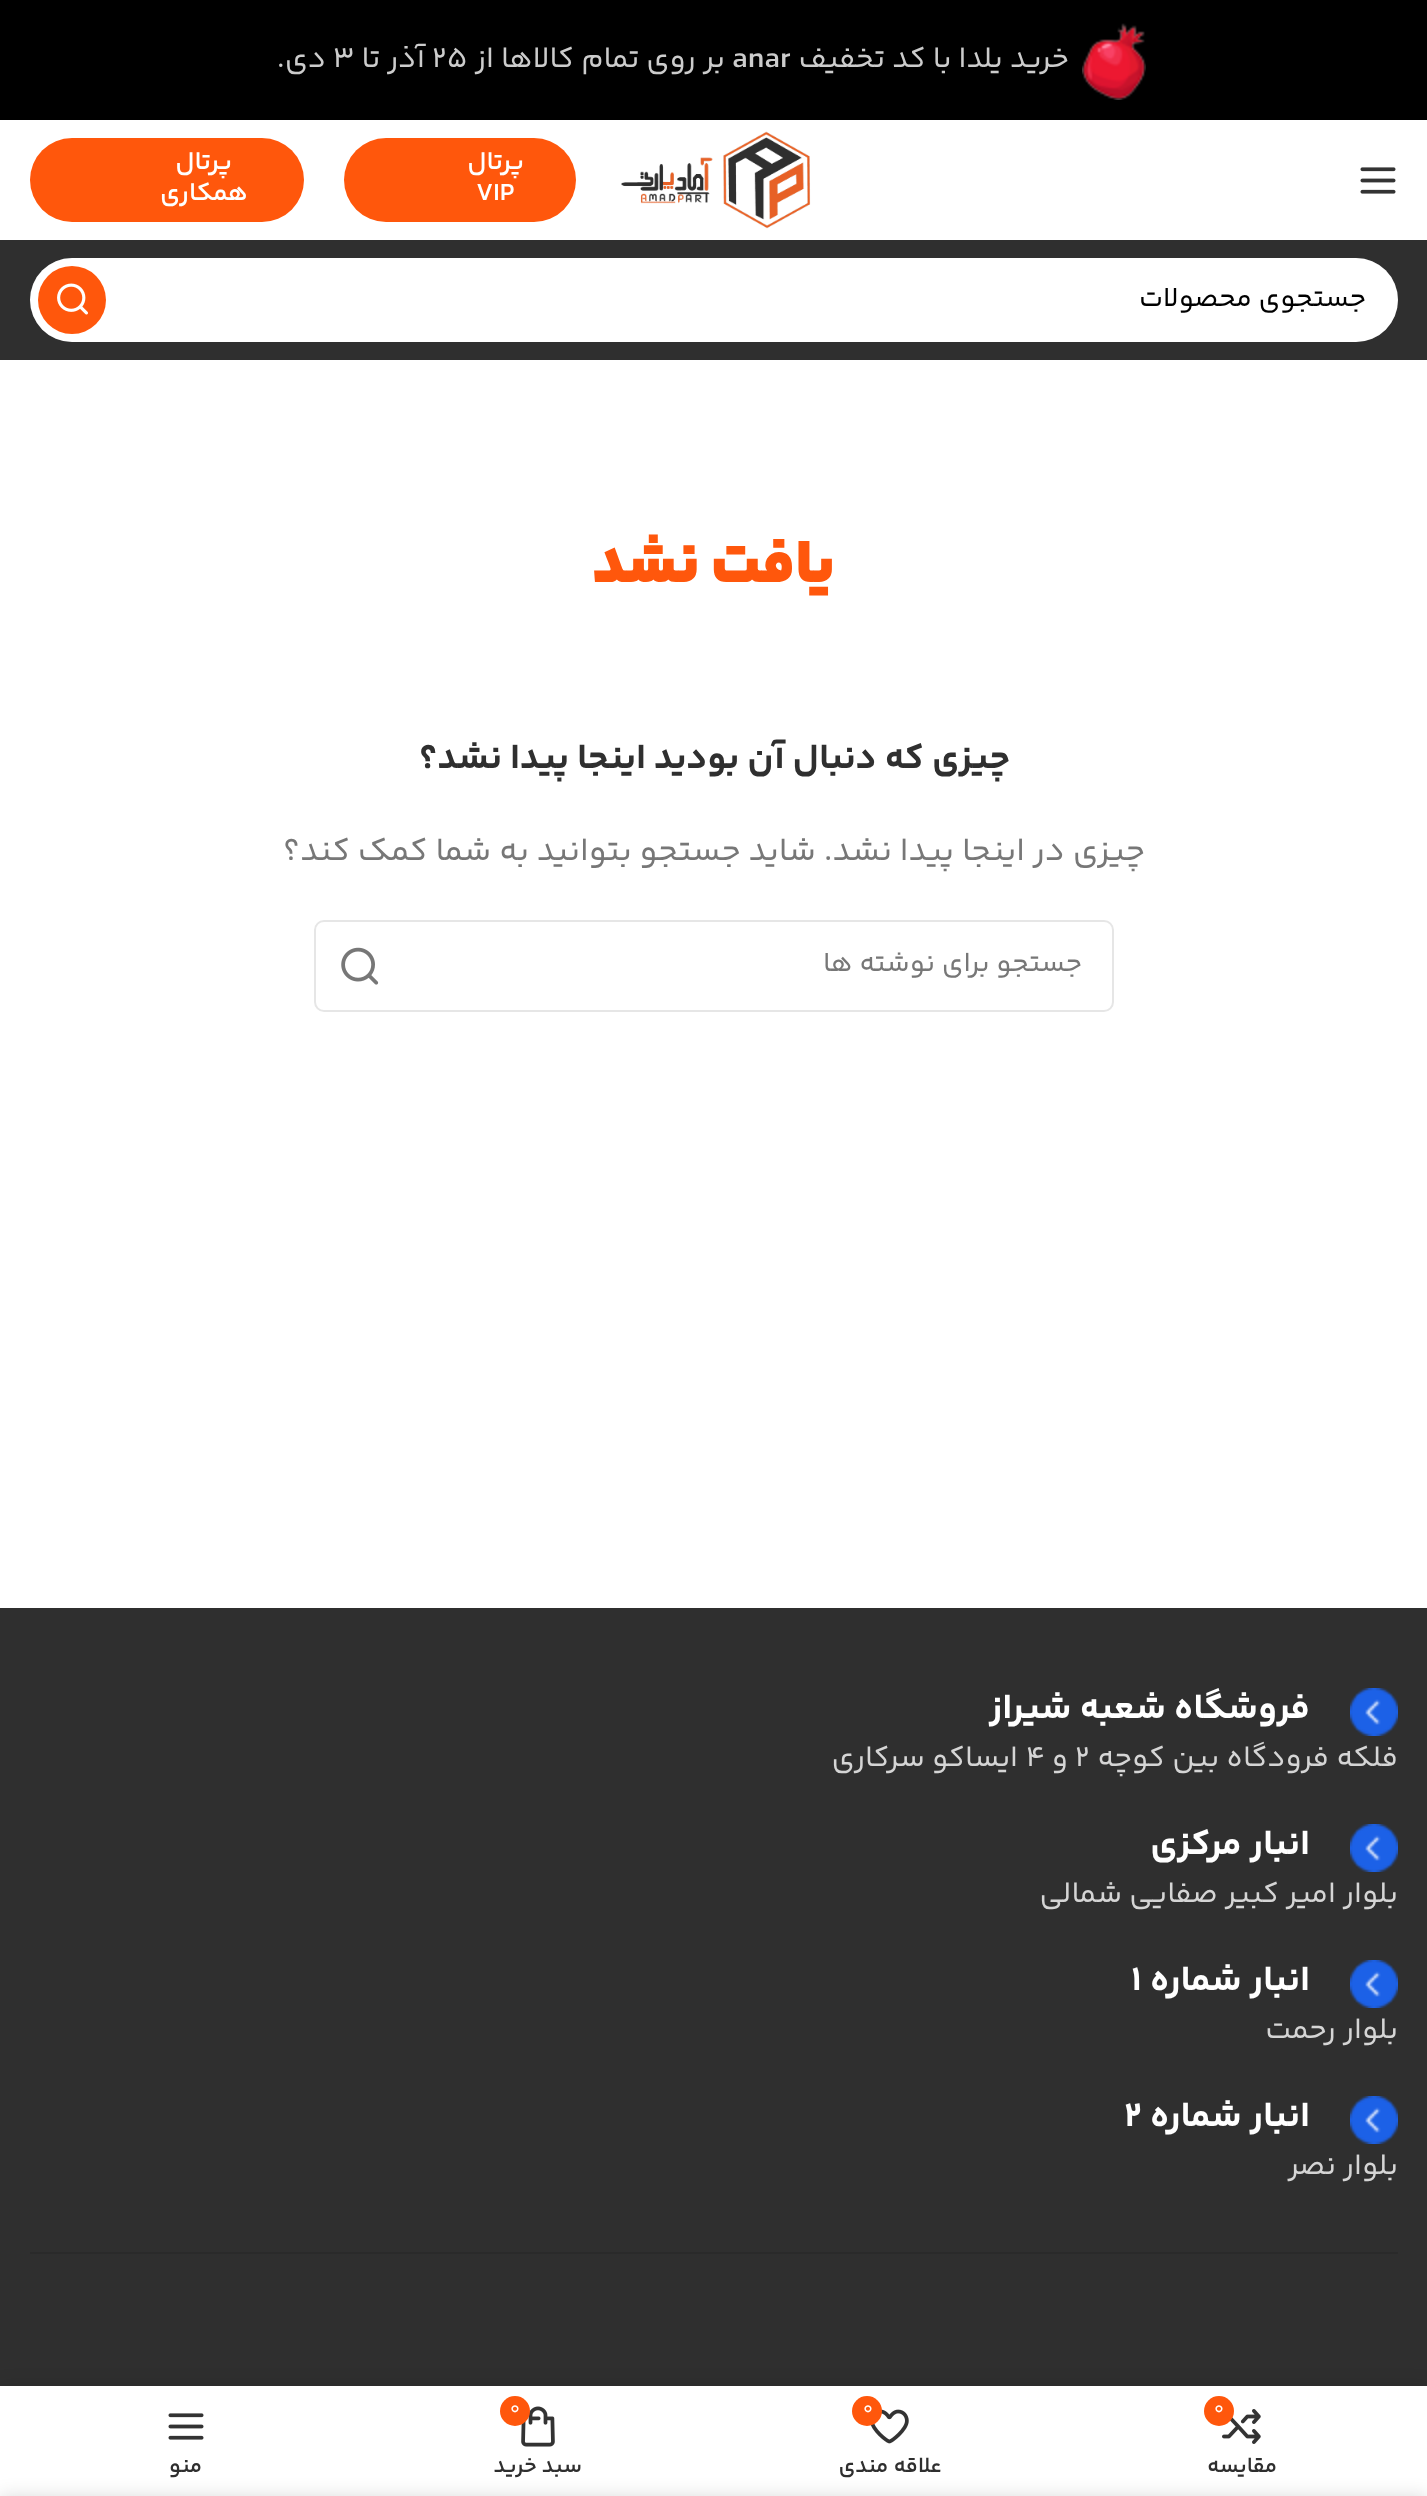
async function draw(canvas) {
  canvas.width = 1427
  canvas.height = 2496
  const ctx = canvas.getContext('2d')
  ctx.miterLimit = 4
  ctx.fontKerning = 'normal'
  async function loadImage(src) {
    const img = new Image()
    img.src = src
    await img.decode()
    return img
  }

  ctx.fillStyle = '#fff'
  ctx.fillRect(0, 0, 1427, 2496)
  ctx.fillStyle = '#000'
  ctx.fillRect(0, 0, 1427, 120)
  ctx.drawImage(await loadImage('image0.png'), 1082, 23, 64, 77)
  ctx.direction = 'rtl'
  ctx.font = '30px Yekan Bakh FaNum'
  ctx.fillStyle = '#ccc'
  ctx.fillText('خرید یلدا با کد تخفیف', 1069, 67)
  ctx.direction = 'ltr'
  ctx.font = '600 30px Yekan Bakh FaNum'
  ctx.fillText('anar', 732, 67)
  ctx.direction = 'rtl'
  ctx.font = '30px Yekan Bakh FaNum'
  ctx.fillText('بر روی تمام کالاها از', 725, 67)
  ctx.direction = 'ltr'
  ctx.fillText('25', 432, 67)
  ctx.direction = 'rtl'
  ctx.fillText('آذر تا', 425, 67)
  ctx.direction = 'ltr'
  ctx.fillText('3', 333, 67)
  ctx.direction = 'rtl'
  ctx.fillText('دی.', 326, 67)
  ctx.drawImage(await loadImage('image1.png'), 1360, 167, 36, 27)
  ctx.drawImage(await loadImage('image2.png'), 621, 131, 190, 98)
  ctx.fillStyle = '#ff570c'
  ctx.beginPath()
  ctx.roundRect(344, 138, 232, 84, 42)
  ctx.fill()
  ctx.font = '600 26px Yekan Bakh FaNum'
  ctx.fillStyle = '#fff'
  ctx.fillText('پرتال', 524, 169)
  ctx.direction = 'ltr'
  ctx.fillText('VIP', 476, 200)
  ctx.fillStyle = '#ff570c'
  ctx.beginPath()
  ctx.roundRect(30, 138, 274, 84, 42)
  ctx.fill()
  ctx.direction = 'rtl'
  ctx.fillStyle = '#fff'
  ctx.fillText('پرتال', 232, 169)
  ctx.fillText('همکاری', 248, 200)
  ctx.fillStyle = '#2f2f2f'
  ctx.fillRect(0, 240, 1427, 120)
  ctx.fillStyle = '#fff'
  ctx.beginPath()
  ctx.roundRect(30, 258, 1368, 84, 42)
  ctx.fill()
  ctx.beginPath()
  ctx.roundRect(31, 259, 1366, 82, 41)
  ctx.strokeStyle = '#ffffff33'
  ctx.lineWidth = 2
  ctx.stroke()
  ctx.font = '28px Yekan Bakh FaNum'
  ctx.fillStyle = '#000'
  ctx.fillText('جستجوی محصولات', 1366, 306)
  ctx.fillStyle = '#ff570c'
  ctx.beginPath()
  ctx.arc(72, 300, 34, 0, 2 * Math.PI)
  ctx.fill()
  ctx.drawImage(await loadImage('image3.png'), 57, 283, 31, 32)
  ctx.font = '900 64px Yekan Bakh FaNum'
  ctx.fillText('یافت نشد', 835, 582)
  ctx.font = 'bold 36px Yekan Bakh FaNum'
  ctx.fillStyle = '#2f2f2f'
  ctx.fillText('چیزی که دنبال آن بودید اینجا پیدا نشد؟', 1010, 768)
  ctx.font = '33px Yekan Bakh FaNum'
  ctx.fillStyle = '#777'
  ctx.fillText('چیزی در اینجا پیدا نشد. شاید جستجو بتوانید به شما کمک کند؟', 1145, 860)
  ctx.beginPath()
  ctx.roundRect(315, 921, 798, 90, 9)
  ctx.strokeStyle = '#e6e6e6'
  ctx.stroke()
  ctx.font = '28px Yekan Bakh FaNum'
  ctx.fillText('جستجو برای نوشته ها', 1082, 971)
  ctx.drawImage(await loadImage('image4.png'), 341, 947, 38, 38)
  ctx.fillStyle = '#2f2f2f'
  ctx.fillRect(0, 1608, 1427, 778)
  ctx.fillStyle = '#2a2a2a'
  ctx.fillRect(30, 2252, 1368, 2)
  ctx.drawImage(await loadImage('image5.png'), 1350, 1688, 48, 48)
  ctx.font = 'bold 36px Yekan Bakh FaNum'
  ctx.fillStyle = '#fff'
  ctx.fillText('فروشگاه', 1310, 1718)
  ctx.fillText('شعبه شیراز', 1166, 1718)
  ctx.font = '30px Yekan Bakh FaNum'
  ctx.fillStyle = '#d5d5d5'
  ctx.fillText('فلکه فرودگاه بین کوچه', 1398, 1766)
  ctx.direction = 'ltr'
  ctx.fillText('2', 1075, 1766)
  ctx.direction = 'rtl'
  ctx.fillText('و', 1068, 1766)
  ctx.direction = 'ltr'
  ctx.fillText('4', 1026, 1766)
  ctx.direction = 'rtl'
  ctx.fillText('ایساکو سرکاری', 1018, 1766)
  ctx.drawImage(await loadImage('image5.png'), 1350, 1824, 48, 48)
  ctx.font = 'bold 36px Yekan Bakh FaNum'
  ctx.fillStyle = '#fff'
  ctx.fillText('انبار مرکزی', 1310, 1854)
  ctx.font = '30px Yekan Bakh FaNum'
  ctx.fillStyle = '#d5d5d5'
  ctx.fillText('بلوار امیر کبیر صفایی شمالی', 1398, 1902)
  ctx.drawImage(await loadImage('image5.png'), 1350, 1960, 48, 48)
  ctx.font = 'bold 36px Yekan Bakh FaNum'
  ctx.fillStyle = '#fff'
  ctx.fillText('انبار شماره', 1310, 1990)
  ctx.direction = 'ltr'
  ctx.fillText('1', 1131, 1990)
  ctx.direction = 'rtl'
  ctx.font = '30px Yekan Bakh FaNum'
  ctx.fillStyle = '#d5d5d5'
  ctx.fillText('بلوار رحمت', 1398, 2038)
  ctx.drawImage(await loadImage('image5.png'), 1350, 2096, 48, 48)
  ctx.font = 'bold 36px Yekan Bakh FaNum'
  ctx.fillStyle = '#fff'
  ctx.fillText('انبار شماره', 1310, 2126)
  ctx.direction = 'ltr'
  ctx.fillText('2', 1124, 2126)
  ctx.direction = 'rtl'
  ctx.font = '30px Yekan Bakh FaNum'
  ctx.fillStyle = '#d5d5d5'
  ctx.fillText('بلوار نصر', 1398, 2174)
  ctx.fillStyle = '#0000001f'
  ctx.filter = 'blur(9px)'
  ctx.beginPath()
  ctx.rect(0, 2386, 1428, 110)
  ctx.fill()
  ctx.filter = 'none'
  ctx.fillStyle = '#fff'
  ctx.fillRect(0, 2386, 1427, 110)
  ctx.drawImage(await loadImage('image6.png'), 1222, 2409, 39, 35)
  ctx.fillStyle = '#ff570c'
  ctx.beginPath()
  ctx.arc(1219, 2411, 15, 0, 2 * Math.PI)
  ctx.fill()
  ctx.direction = 'ltr'
  ctx.font = '18px Yekan Bakh FaNum'
  ctx.fillStyle = '#fff'
  ctx.fillText('0', 1214, 2414)
  ctx.direction = 'rtl'
  ctx.font = '600 22px Yekan Bakh FaNum'
  ctx.fillStyle = '#2f2f2f'
  ctx.fillText('مقایسه', 1277, 2472)
  ctx.drawImage(await loadImage('image7.png'), 870, 2409, 39, 35)
  ctx.fillStyle = '#ff570c'
  ctx.beginPath()
  ctx.arc(867, 2411, 15, 0, 2 * Math.PI)
  ctx.fill()
  ctx.direction = 'ltr'
  ctx.font = '18px Yekan Bakh FaNum'
  ctx.fillStyle = '#fff'
  ctx.fillText('0', 863, 2414)
  ctx.direction = 'rtl'
  ctx.font = '600 22px Yekan Bakh FaNum'
  ctx.fillStyle = '#2f2f2f'
  ctx.fillText('علاقه مندی', 942, 2472)
  ctx.drawImage(await loadImage('image8.png'), 521, 2406, 34, 41)
  ctx.fillStyle = '#ff570c'
  ctx.beginPath()
  ctx.arc(515, 2411, 15, 0, 2 * Math.PI)
  ctx.fill()
  ctx.direction = 'ltr'
  ctx.font = '18px Yekan Bakh FaNum'
  ctx.fillStyle = '#fff'
  ctx.fillText('0', 510, 2414)
  ctx.direction = 'rtl'
  ctx.font = '600 22px Yekan Bakh FaNum'
  ctx.fillStyle = '#2f2f2f'
  ctx.fillText('سبد خرید', 582, 2472)
  ctx.drawImage(await loadImage('image1.png'), 168, 2413, 36, 27)
  ctx.fillText('منو', 202, 2472)
  ctx.fillStyle = '#00000024'
  ctx.filter = 'blur(9px)'
  ctx.beginPath()
  ctx.rect(0, 2496, 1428, 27)
  ctx.fill()
  ctx.filter = 'none'
}

draw(document.querySelector('canvas'))
